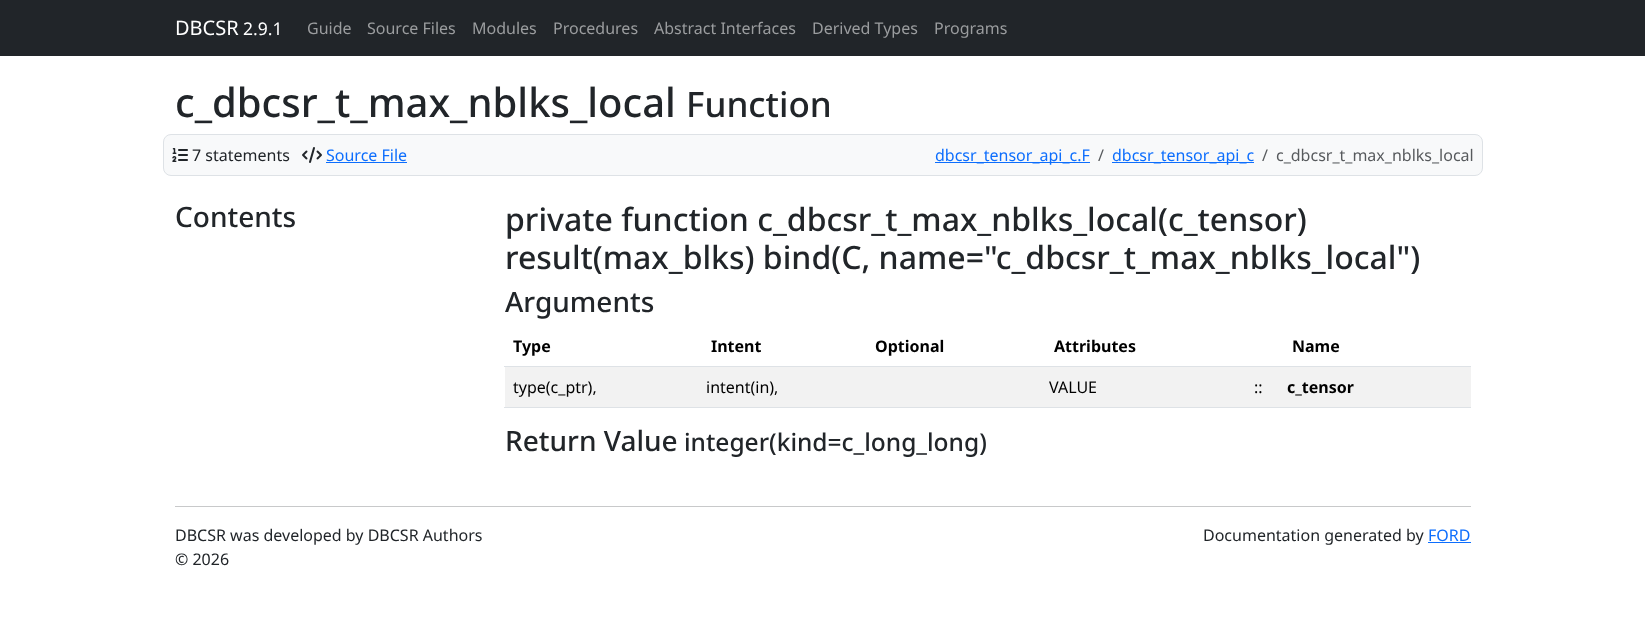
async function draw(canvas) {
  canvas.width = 1645
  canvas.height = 636
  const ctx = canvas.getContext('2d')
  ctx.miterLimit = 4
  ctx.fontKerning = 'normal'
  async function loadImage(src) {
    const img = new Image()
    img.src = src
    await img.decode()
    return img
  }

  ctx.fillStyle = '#fff'
  ctx.fillRect(0, 0, 1645, 636)
  ctx.fillStyle = '#212529'
  ctx.fillRect(0, 0, 1645, 56)
  ctx.font = '20px Noto Sans'
  ctx.fillStyle = '#fff'
  ctx.fillText('DBCSR', 175, 35)
  ctx.font = '17.5px Noto Sans'
  ctx.fillText('2.9.1', 243, 35)
  ctx.font = '16px Noto Sans'
  ctx.fillStyle = '#9b9d9f'
  ctx.fillText('Guide', 307, 34)
  ctx.fillText('Source Files', 367, 34)
  ctx.fillText('Modules', 472, 34)
  ctx.fillText('Procedures', 553, 34)
  ctx.fillText('Abstract Interfaces', 654, 34)
  ctx.fillText('Derived Types', 812, 34)
  ctx.fillText('Programs', 934, 34)
  ctx.font = '500 40px Noto Sans'
  ctx.fillStyle = '#212529'
  ctx.fillText('c_dbcsr_t_max_nblks_local', 175, 117)
  ctx.font = '500 35px Noto Sans'
  ctx.fillText('Function', 686, 117)
  ctx.fillStyle = '#f8f9fa'
  ctx.beginPath()
  ctx.roundRect(163.5, 134.5, 1319, 41, 7.5)
  ctx.fill()
  ctx.strokeStyle = '#dee2e6'
  ctx.stroke()
  ctx.drawImage(await loadImage('image0.png'), 172, 148, 16, 14)
  ctx.font = '16px Noto Sans'
  ctx.fillStyle = '#212529'
  ctx.fillText('7 statements', 192, 161)
  ctx.drawImage(await loadImage('image1.png'), 302, 147, 20, 16)
  ctx.fillStyle = '#0d6efd'
  ctx.fillText('Source File', 326, 161)
  ctx.fillRect(326, 162, 81, 1)
  ctx.fillRect(935, 162, 155, 1)
  ctx.fillText('dbcsr_tensor_api_c.F', 935, 161)
  ctx.fillStyle = '#575a5d'
  ctx.fillText('/', 1098, 161)
  ctx.fillStyle = '#0d6efd'
  ctx.fillRect(1112, 162, 142, 1)
  ctx.fillText('dbcsr_tensor_api_c', 1112, 161)
  ctx.fillStyle = '#575a5d'
  ctx.fillText('/', 1262, 161)
  ctx.fillText('c_dbcsr_t_max_nblks_local', 1276, 161)
  ctx.font = '500 28px Noto Sans'
  ctx.fillStyle = '#212529'
  ctx.fillText('Contents', 175, 227)
  ctx.font = '500 32px Noto Sans'
  ctx.fillText('private function c_dbcsr_t_max_nblks_local(c_tensor)', 505, 231)
  ctx.fillText('result(max_blks) bind(C, name="c_dbcsr_t_max_nblks_local")', 505, 269)
  ctx.font = '500 28px Noto Sans'
  ctx.fillText('Arguments', 505, 312)
  ctx.font = 'bold 16px Noto Sans'
  ctx.fillStyle = '#000'
  ctx.fillText('Type', 513, 352)
  ctx.fillText('Intent', 711, 352)
  ctx.fillText('Optional', 875, 352)
  ctx.fillText('Attributes', 1054, 352)
  ctx.fillText('Name', 1292, 352)
  ctx.fillStyle = '#dee2e6'
  ctx.fillRect(504, 366, 967, 1)
  ctx.fillStyle = '#f2f2f2'
  ctx.fillRect(505, 367, 966, 40)
  ctx.font = '16px Noto Sans'
  ctx.fillStyle = '#000'
  ctx.fillText('type(c_ptr),', 513, 393)
  ctx.fillText('intent(in),', 706, 393)
  ctx.fillText('VALUE', 1049, 393)
  ctx.fillText('::', 1254, 393)
  ctx.font = 'bold 16px Noto Sans'
  ctx.fillText('c_tensor', 1287, 393)
  ctx.fillStyle = '#dee2e6'
  ctx.fillRect(504, 407, 967, 1)
  ctx.font = '500 28px Noto Sans'
  ctx.fillStyle = '#212529'
  ctx.fillText('Return Value', 505, 451)
  ctx.font = '500 24.5px Noto Sans'
  ctx.fillText('integer(kind=c_long_long)', 684, 451)
  ctx.fillStyle = '#c8c9ca'
  ctx.fillRect(175, 506, 1296, 1)
  ctx.font = '16px Noto Sans'
  ctx.fillStyle = '#212529'
  ctx.fillText('DBCSR was developed by DBCSR Authors', 175, 541)
  ctx.fillText('© 2026', 175, 565)
  ctx.fillText('Documentation generated by', 1203, 541)
  ctx.fillStyle = '#0d6efd'
  ctx.fillText('FORD', 1428, 541)
  ctx.fillRect(1428, 542, 43, 1)
}

draw(document.querySelector('canvas'))
